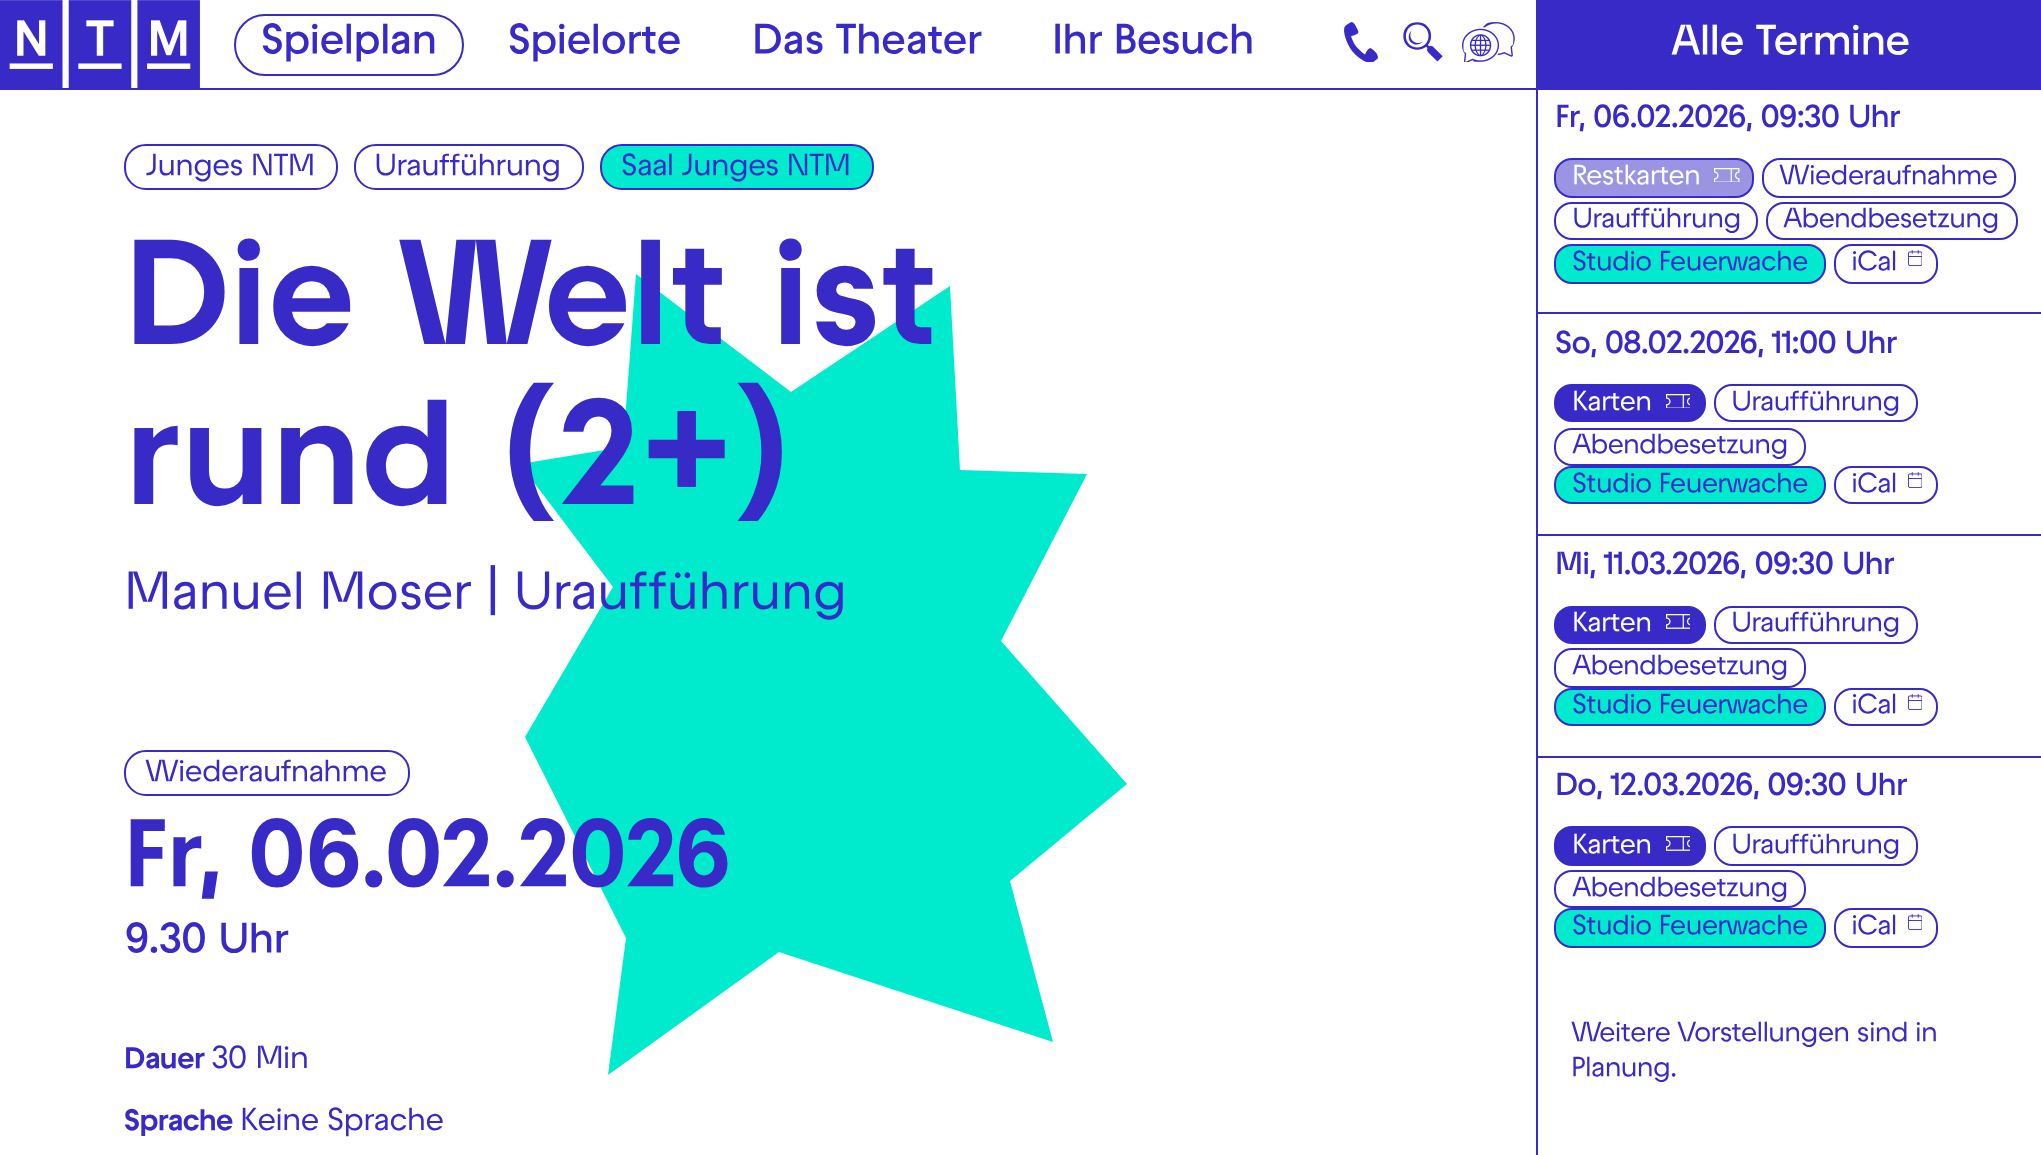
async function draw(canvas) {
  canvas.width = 2041
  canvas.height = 1155
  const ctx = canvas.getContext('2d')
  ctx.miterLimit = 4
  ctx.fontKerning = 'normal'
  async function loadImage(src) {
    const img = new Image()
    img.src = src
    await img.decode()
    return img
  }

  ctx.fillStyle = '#fff'
  ctx.fillRect(0, 0, 2041, 1155)
  ctx.fillStyle = '#382ac7'
  ctx.fillRect(0, 88, 1536, 2)
  ctx.drawImage(await loadImage('image0.png'), 0, 0, 200, 88)
  ctx.beginPath()
  ctx.roundRect(235, 15, 228, 60, 30)
  ctx.strokeStyle = '#382ac7'
  ctx.lineWidth = 2
  ctx.stroke()
  ctx.letterSpacing = '-1.2px'
  ctx.font = '600 42.5px "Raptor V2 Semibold"'
  ctx.fillText('Spielplan', 261, 56)
  ctx.fillText('Spielorte', 508, 56)
  ctx.fillText('Das Theater', 752, 56)
  ctx.fillText('Ihr Besuch', 1052, 56)
  ctx.drawImage(await loadImage('image1.png'), 1344, 22, 34, 40)
  ctx.font = '500 54px "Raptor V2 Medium"'
  ctx.fillText('🔍', 1399, 64)
  ctx.drawImage(await loadImage('image2.png'), 1462, 22, 53, 40)
  ctx.fillStyle = '#00ebcd'
  ctx.beginPath()
  ctx.moveTo(636, 274)
  ctx.lineTo(623, 447)
  ctx.lineTo(520, 464)
  ctx.lineTo(613, 587)
  ctx.lineTo(525, 737)
  ctx.lineTo(626, 938)
  ctx.lineTo(608, 1075)
  ctx.lineTo(779, 952)
  ctx.lineTo(1053, 1042)
  ctx.lineTo(1010, 881)
  ctx.lineTo(1127, 784)
  ctx.lineTo(1001, 641)
  ctx.lineTo(1087, 474)
  ctx.lineTo(960, 470)
  ctx.lineTo(950, 286)
  ctx.lineTo(791, 392)
  ctx.closePath()
  ctx.fill()
  ctx.beginPath()
  ctx.roundRect(125, 145, 212, 44, 21)
  ctx.stroke()
  ctx.font = '500 30.75px "Raptor V2 Medium"'
  ctx.fillStyle = '#382ac7'
  ctx.fillText('Junges NTM', 145, 177)
  ctx.beginPath()
  ctx.roundRect(355, 145, 228, 44, 21)
  ctx.stroke()
  ctx.fillText('Uraufführung', 374, 177)
  ctx.fillStyle = '#00ebcd'
  ctx.beginPath()
  ctx.roundRect(601, 145, 272, 44, 21)
  ctx.fill()
  ctx.stroke()
  ctx.fillStyle = '#382ac7'
  ctx.fillText('Saal Junges NTM', 621, 177)
  ctx.font = 'bold 149px "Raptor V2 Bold"'
  ctx.fillText('Die Welt ist', 124, 353)
  ctx.fillText('rund (2+)', 124, 513)
  ctx.font = '500 53.25px "Raptor V2 Medium"'
  ctx.fillText('Manuel Moser | Uraufführung', 124, 612)
  ctx.beginPath()
  ctx.roundRect(125, 751, 284, 44, 21)
  ctx.stroke()
  ctx.font = '500 30.75px "Raptor V2 Medium"'
  ctx.fillText('Wiederaufnahme', 145, 783)
  ctx.font = 'bold 95.75px "Raptor V2 Bold"'
  ctx.fillText('Fr, 06.02.2026', 124, 892)
  ctx.font = '600 42.5px "Raptor V2 Semibold"'
  ctx.fillText('9.30 Uhr', 124, 955)
  ctx.font = 'bold 30px "Raptor V2 Bold"'
  ctx.fillText('Dauer', 124, 1070)
  ctx.font = '500 32px "Raptor V2 Medium"'
  ctx.fillText('30 Min', 211, 1070)
  ctx.font = 'bold 30px "Raptor V2 Bold"'
  ctx.fillText('Sprache', 124, 1132)
  ctx.font = '500 32px "Raptor V2 Medium"'
  ctx.fillText('Keine Sprache', 240, 1132)
  ctx.fillRect(1536, 0, 2, 1155)
  ctx.fillRect(1538, 0, 503, 90)
  ctx.font = '600 42.5px "Raptor V2 Semibold"'
  ctx.fillStyle = '#fff'
  ctx.fillText('Alle Termine', 1671, 57)
  ctx.fillStyle = '#382ac7'
  ctx.fillRect(1538, 312, 503, 2)
  ctx.font = '600 32px "Raptor V2 Semibold"'
  ctx.fillText('Fr, 06.02.2026, 09:30 Uhr', 1555, 129)
  ctx.fillStyle = '#9b94e3'
  ctx.beginPath()
  ctx.roundRect(1555, 159, 198, 38, 17)
  ctx.fill()
  ctx.stroke()
  ctx.font = '500 28px "Raptor V2 Medium"'
  ctx.fillStyle = '#fff'
  ctx.fillText('Restkarten', 1572, 186)
  ctx.drawImage(await loadImage('image3.png'), 1714, 168, 26, 14)
  ctx.beginPath()
  ctx.roundRect(1763, 159, 252, 38, 17)
  ctx.stroke()
  ctx.fillStyle = '#382ac7'
  ctx.fillText('Wiederaufnahme', 1779, 186)
  ctx.beginPath()
  ctx.roundRect(1555, 203, 202, 36, 17)
  ctx.stroke()
  ctx.fillText('Uraufführung', 1572, 229)
  ctx.beginPath()
  ctx.roundRect(1767, 203, 250, 36, 17)
  ctx.stroke()
  ctx.fillText('Abendbesetzung', 1783, 229)
  ctx.fillStyle = '#00ebcd'
  ctx.beginPath()
  ctx.roundRect(1555, 245, 270, 38, 17)
  ctx.fill()
  ctx.stroke()
  ctx.fillStyle = '#382ac7'
  ctx.fillText('Studio Feuerwache', 1572, 272)
  ctx.beginPath()
  ctx.roundRect(1835, 245, 102, 38, 17)
  ctx.stroke()
  ctx.fillText('iCal', 1851, 272)
  ctx.drawImage(await loadImage('image4.png'), 1908, 250, 14, 16)
  ctx.fillRect(1538, 534, 503, 2)
  ctx.font = '600 32px "Raptor V2 Semibold"'
  ctx.fillText('So, 08.02.2026, 11:00 Uhr', 1555, 355)
  ctx.beginPath()
  ctx.roundRect(1555, 385, 150, 36, 17)
  ctx.fill()
  ctx.stroke()
  ctx.font = '500 28px "Raptor V2 Medium"'
  ctx.fillStyle = '#fff'
  ctx.fillText('Karten', 1572, 412)
  ctx.drawImage(await loadImage('image5.png'), 1666, 394, 24, 14)
  ctx.beginPath()
  ctx.roundRect(1715, 385, 202, 36, 17)
  ctx.stroke()
  ctx.fillStyle = '#382ac7'
  ctx.fillText('Uraufführung', 1731, 412)
  ctx.beginPath()
  ctx.roundRect(1555, 429, 250, 36, 17)
  ctx.stroke()
  ctx.fillText('Abendbesetzung', 1572, 455)
  ctx.fillStyle = '#00ebcd'
  ctx.beginPath()
  ctx.roundRect(1555, 467, 270, 36, 17)
  ctx.fill()
  ctx.stroke()
  ctx.fillStyle = '#382ac7'
  ctx.fillText('Studio Feuerwache', 1572, 494)
  ctx.beginPath()
  ctx.roundRect(1835, 467, 102, 36, 17)
  ctx.stroke()
  ctx.fillText('iCal', 1851, 494)
  ctx.drawImage(await loadImage('image4.png'), 1908, 472, 14, 16)
  ctx.fillRect(1538, 756, 503, 2)
  ctx.font = '600 32px "Raptor V2 Semibold"'
  ctx.fillText('Mi, 11.03.2026, 09:30 Uhr', 1555, 576)
  ctx.beginPath()
  ctx.roundRect(1555, 607, 150, 36, 17)
  ctx.fill()
  ctx.stroke()
  ctx.font = '500 28px "Raptor V2 Medium"'
  ctx.fillStyle = '#fff'
  ctx.fillText('Karten', 1572, 633)
  ctx.drawImage(await loadImage('image6.png'), 1666, 614, 24, 15)
  ctx.beginPath()
  ctx.roundRect(1715, 607, 202, 36, 17)
  ctx.stroke()
  ctx.fillStyle = '#382ac7'
  ctx.fillText('Uraufführung', 1731, 633)
  ctx.beginPath()
  ctx.roundRect(1555, 649, 250, 38, 17)
  ctx.stroke()
  ctx.fillText('Abendbesetzung', 1572, 676)
  ctx.fillStyle = '#00ebcd'
  ctx.beginPath()
  ctx.roundRect(1555, 689, 270, 36, 17)
  ctx.fill()
  ctx.stroke()
  ctx.fillStyle = '#382ac7'
  ctx.fillText('Studio Feuerwache', 1572, 715)
  ctx.beginPath()
  ctx.roundRect(1835, 689, 102, 36, 17)
  ctx.stroke()
  ctx.fillText('iCal', 1851, 715)
  ctx.drawImage(await loadImage('image4.png'), 1908, 694, 14, 16)
  ctx.font = '600 32px "Raptor V2 Semibold"'
  ctx.fillText('Do, 12.03.2026, 09:30 Uhr', 1555, 797)
  ctx.beginPath()
  ctx.roundRect(1555, 827, 150, 38, 17)
  ctx.fill()
  ctx.stroke()
  ctx.font = '500 28px "Raptor V2 Medium"'
  ctx.fillStyle = '#fff'
  ctx.fillText('Karten', 1572, 855)
  ctx.drawImage(await loadImage('image6.png'), 1666, 836, 24, 15)
  ctx.beginPath()
  ctx.roundRect(1715, 827, 202, 38, 17)
  ctx.stroke()
  ctx.fillStyle = '#382ac7'
  ctx.fillText('Uraufführung', 1731, 855)
  ctx.beginPath()
  ctx.roundRect(1555, 871, 250, 36, 17)
  ctx.stroke()
  ctx.fillText('Abendbesetzung', 1572, 898)
  ctx.fillStyle = '#00ebcd'
  ctx.beginPath()
  ctx.roundRect(1555, 909, 270, 38, 17)
  ctx.fill()
  ctx.stroke()
  ctx.fillStyle = '#382ac7'
  ctx.fillText('Studio Feuerwache', 1572, 936)
  ctx.beginPath()
  ctx.roundRect(1835, 909, 102, 38, 17)
  ctx.stroke()
  ctx.fillText('iCal', 1851, 936)
  ctx.drawImage(await loadImage('image4.png'), 1908, 914, 14, 16)
  ctx.fillText('Weitere Vorstellungen sind in', 1571, 1043)
  ctx.fillText('Planung.', 1571, 1078)
}

draw(document.querySelector('canvas'))
